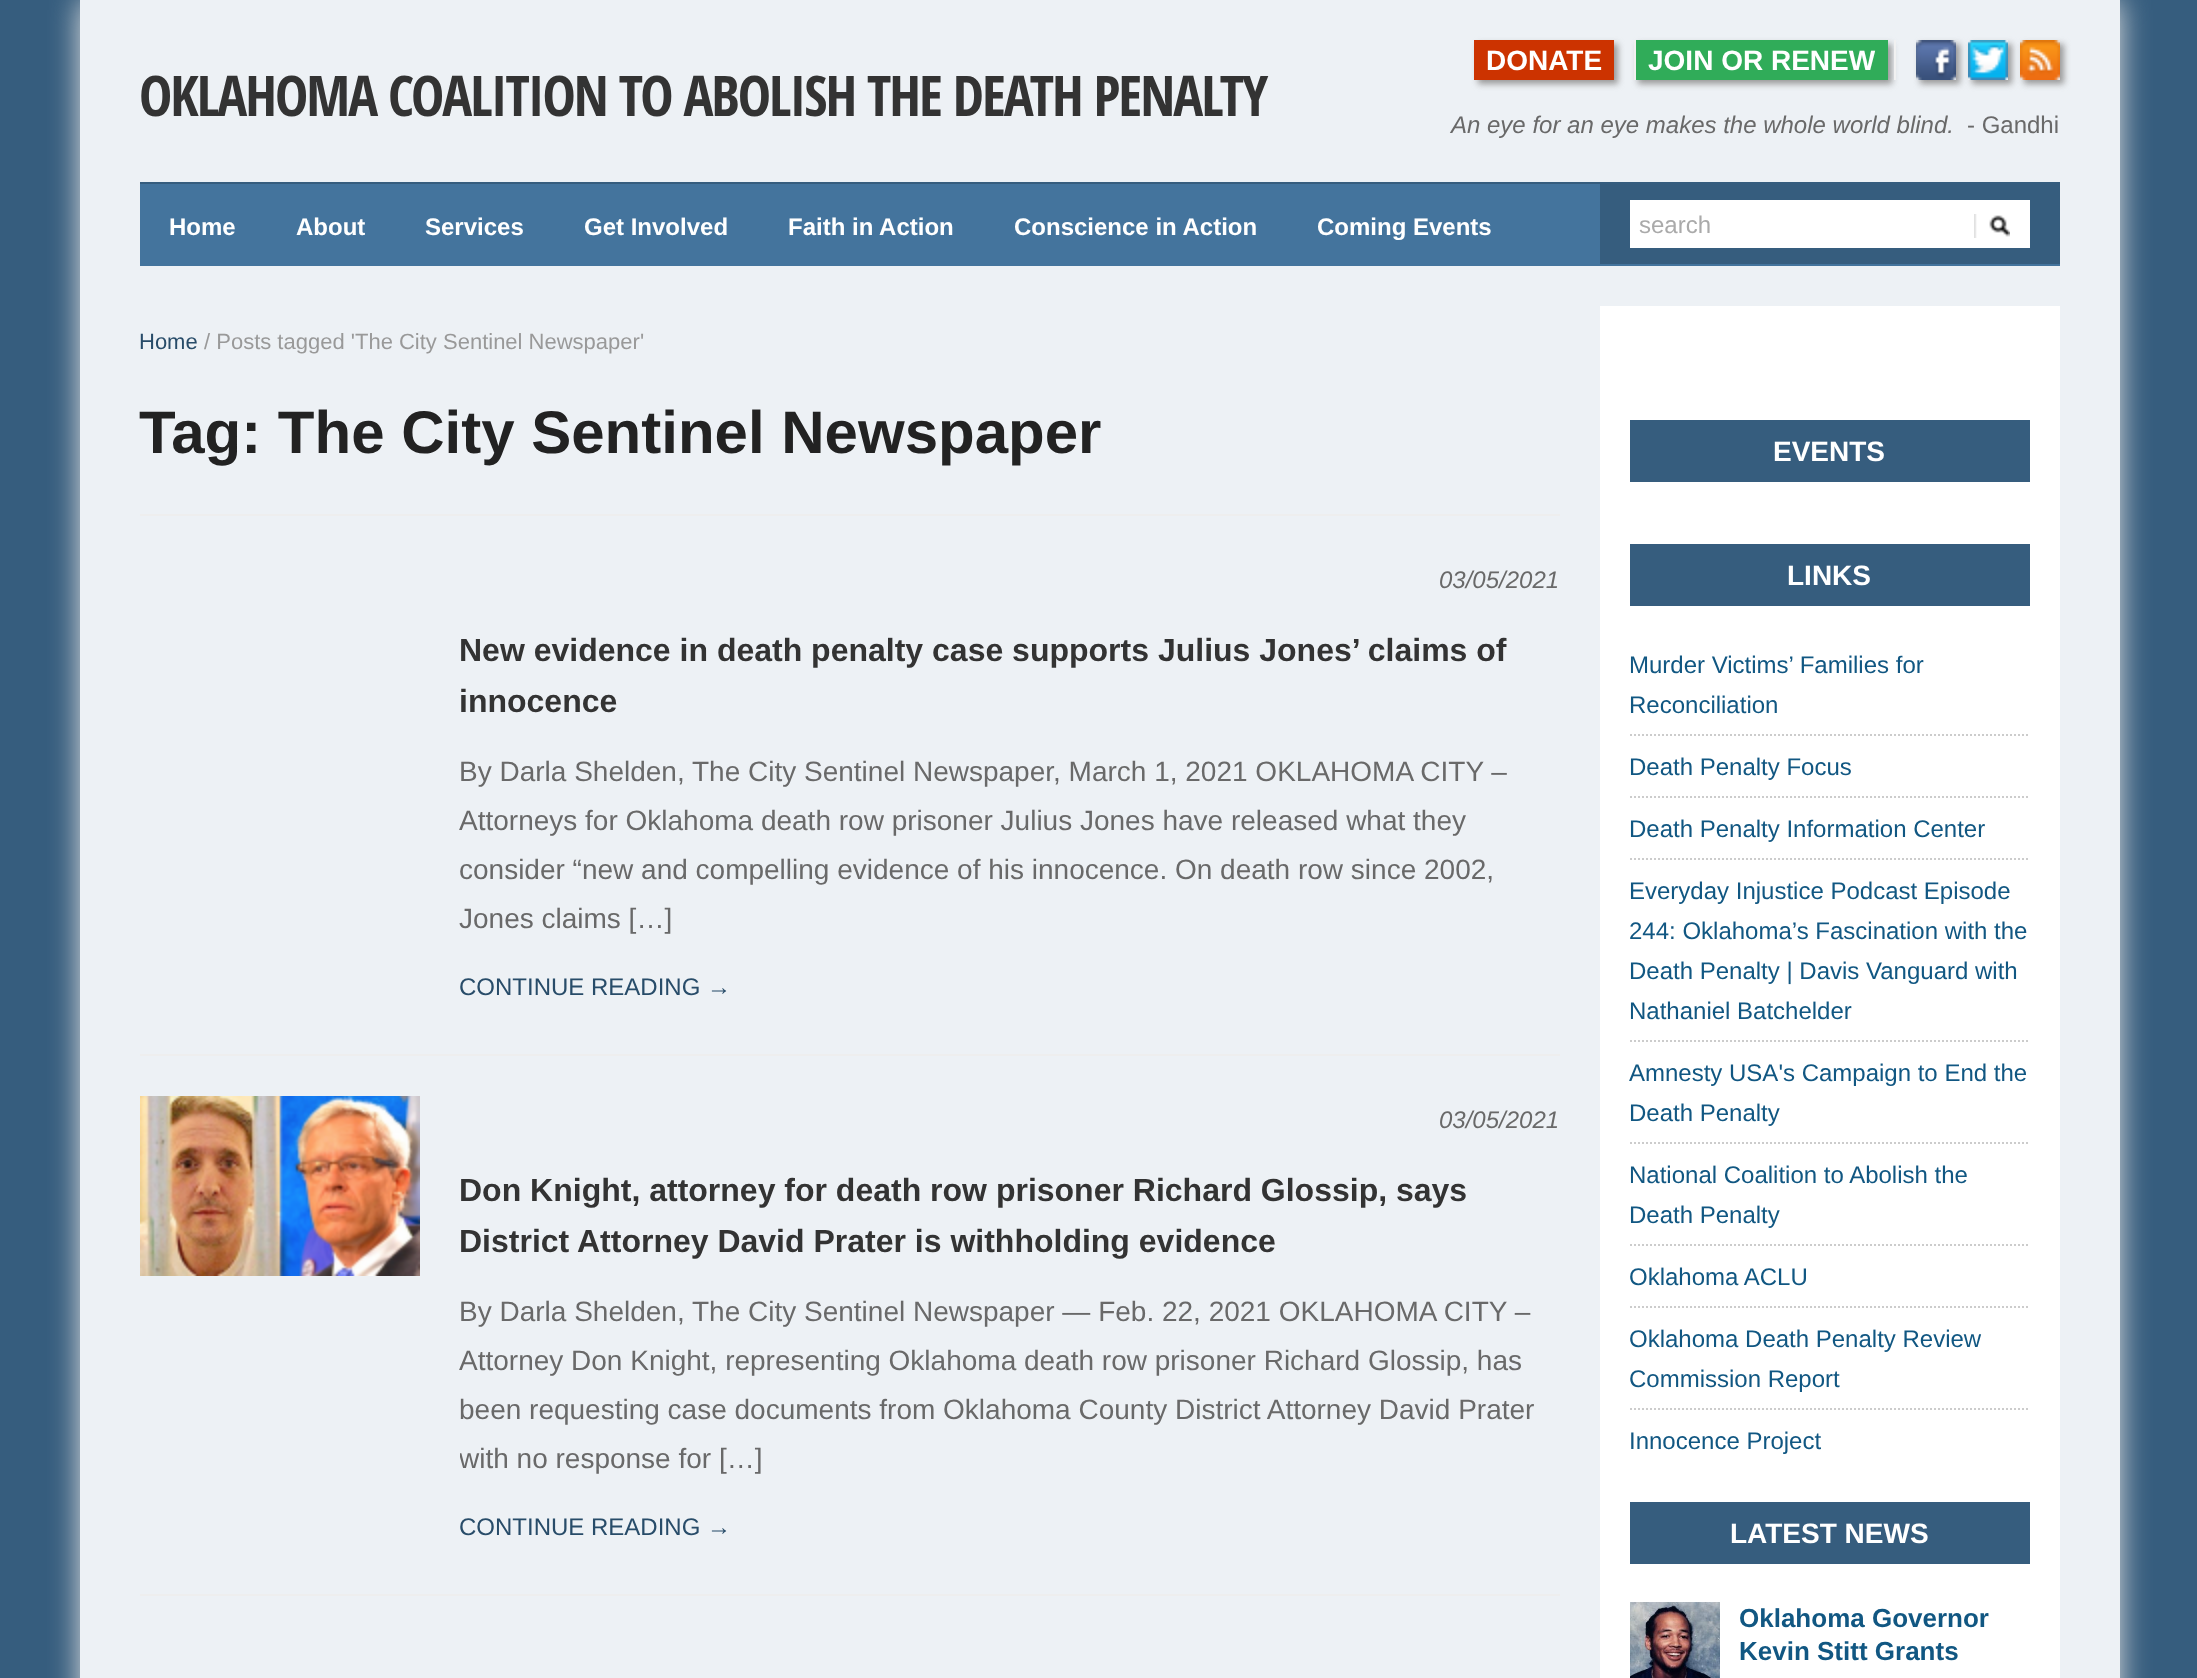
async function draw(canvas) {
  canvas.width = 2197
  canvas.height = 1678
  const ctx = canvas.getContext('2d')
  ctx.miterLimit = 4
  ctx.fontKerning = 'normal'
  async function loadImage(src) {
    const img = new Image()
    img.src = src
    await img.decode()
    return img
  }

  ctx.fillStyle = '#365d7e'
  ctx.fillRect(0, 0, 2197, 1678)
  ctx.fillStyle = '#e1e1e1'
  ctx.filter = 'blur(15px)'
  ctx.beginPath()
  ctx.rect(80, 0, 2040, 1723)
  ctx.fill()
  ctx.filter = 'none'
  ctx.fillStyle = '#edf1f5'
  ctx.fillRect(80, 0, 2040, 1678)
  ctx.fillStyle = '#999'
  ctx.filter = 'blur(3px)'
  ctx.beginPath()
  ctx.rect(1478, 44, 140, 40)
  ctx.fill()
  ctx.filter = 'none'
  ctx.fillStyle = '#c30'
  ctx.fillRect(1474, 40, 140, 40)
  ctx.font = 'bold 28px Liberation Sans'
  ctx.fillStyle = '#fff'
  ctx.fillText('DONATE', 1486, 70)
  ctx.fillStyle = '#999'
  ctx.filter = 'blur(3px)'
  ctx.beginPath()
  ctx.rect(1638, 44, 254, 40)
  ctx.fill()
  ctx.filter = 'none'
  ctx.fillStyle = '#30ac59'
  ctx.fillRect(1636, 40, 252, 40)
  ctx.fillStyle = '#f1f1f1'
  ctx.fillRect(1634, 40, 2, 40)
  ctx.fillStyle = '#fff'
  ctx.fillText('JOIN OR RENEW', 1648, 70)
  ctx.fillStyle = '#f1f1f1'
  ctx.fillRect(1894, 40, 2, 40)
  ctx.save()
  ctx.beginPath()
  ctx.moveTo(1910, 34)
  ctx.lineTo(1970, 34)
  ctx.lineTo(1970, 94)
  ctx.lineTo(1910, 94)
  ctx.closePath()
  ctx.moveTo(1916, 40)
  ctx.lineTo(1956, 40)
  ctx.lineTo(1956, 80)
  ctx.lineTo(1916, 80)
  ctx.closePath()
  ctx.clip('evenodd')
  ctx.fillStyle = '#999'
  ctx.filter = 'blur(3px)'
  ctx.beginPath()
  ctx.rect(1920, 44, 40, 40)
  ctx.fill()
  ctx.filter = 'none'
  ctx.restore()
  ctx.save()
  ctx.beginPath()
  ctx.moveTo(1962, 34)
  ctx.lineTo(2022, 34)
  ctx.lineTo(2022, 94)
  ctx.lineTo(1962, 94)
  ctx.closePath()
  ctx.moveTo(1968, 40)
  ctx.lineTo(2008, 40)
  ctx.lineTo(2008, 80)
  ctx.lineTo(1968, 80)
  ctx.closePath()
  ctx.clip('evenodd')
  ctx.fillStyle = '#999'
  ctx.filter = 'blur(3px)'
  ctx.beginPath()
  ctx.rect(1972, 44, 40, 40)
  ctx.fill()
  ctx.filter = 'none'
  ctx.restore()
  ctx.save()
  ctx.beginPath()
  ctx.moveTo(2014, 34)
  ctx.lineTo(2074, 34)
  ctx.lineTo(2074, 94)
  ctx.lineTo(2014, 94)
  ctx.closePath()
  ctx.moveTo(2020, 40)
  ctx.lineTo(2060, 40)
  ctx.lineTo(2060, 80)
  ctx.lineTo(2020, 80)
  ctx.closePath()
  ctx.clip('evenodd')
  ctx.fillStyle = '#999'
  ctx.filter = 'blur(3px)'
  ctx.beginPath()
  ctx.rect(2024, 44, 40, 40)
  ctx.fill()
  ctx.filter = 'none'
  ctx.restore()
  ctx.drawImage(await loadImage('image0.png'), 1916, 40, 40, 40)
  ctx.drawImage(await loadImage('image1.png'), 1968, 40, 40, 40)
  ctx.drawImage(await loadImage('image2.png'), 2020, 40, 40, 40)
  ctx.letterSpacing = '-2px'
  ctx.font = 'bold 56px Open Sans Condensed'
  ctx.fillStyle = '#333'
  ctx.fillText('OKLAHOMA COALITION TO ABOLISH THE DEATH PENALTY', 139, 116)
  ctx.letterSpacing = '0px'
  ctx.font = 'italic 24px Liberation Sans'
  ctx.fillStyle = '#696969'
  ctx.fillText('An eye for an eye makes the whole world blind.', 1451, 133)
  ctx.font = '24px Liberation Sans'
  ctx.fillText('- Gandhi', 1967, 133)
  ctx.fillStyle = '#44749d'
  ctx.fillRect(140, 184, 1920, 82)
  ctx.fillStyle = '#365d7e'
  ctx.fillRect(140, 182, 1920, 2)
  ctx.font = 'bold 24px Liberation Sans'
  ctx.fillStyle = '#fff'
  ctx.fillText('Home', 169, 235)
  ctx.fillText('About', 296, 235)
  ctx.fillText('Services', 425, 235)
  ctx.fillText('Get Involved', 584, 235)
  ctx.fillText('Faith in Action', 788, 235)
  ctx.fillText('Conscience in Action', 1014, 235)
  ctx.fillText('Coming Events', 1317, 235)
  ctx.fillStyle = '#365d7e'
  ctx.fillRect(1600, 184, 460, 80)
  ctx.fillStyle = '#fff'
  ctx.fillRect(1630, 200, 400, 48)
  ctx.font = '24px Liberation Sans'
  ctx.fillStyle = '#aaa'
  ctx.fillText('search', 1639, 233)
  ctx.drawImage(await loadImage('image3.png'), 1974, 214, 36, 24)
  ctx.font = '22px Liberation Sans'
  ctx.fillStyle = '#284c69'
  ctx.fillText('Home', 139, 349)
  ctx.fillStyle = '#999'
  ctx.fillText('/ Posts tagged \'The City Sentinel Newspaper\'', 204, 349)
  ctx.fillStyle = '#eee'
  ctx.fillRect(140, 514, 1420, 2)
  ctx.font = 'bold 60px Liberation Sans'
  ctx.fillStyle = '#222'
  ctx.fillText('Tag: The City Sentinel Newspaper', 139, 453)
  ctx.fillStyle = '#eee'
  ctx.fillRect(140, 1054, 1420, 2)
  ctx.font = 'italic 24px Liberation Sans'
  ctx.fillStyle = '#696969'
  ctx.fillText('03/05/2021', 1439, 588)
  ctx.font = 'bold 32px Liberation Sans'
  ctx.fillStyle = '#333'
  ctx.fillText('New evidence in death penalty case supports Julius Jones’ claims of', 459, 661)
  ctx.fillText('innocence', 459, 712)
  ctx.font = '28px Liberation Sans'
  ctx.fillStyle = '#696969'
  ctx.fillText('By Darla Shelden, The City Sentinel Newspaper, March 1, 2021 OKLAHOMA CITY –', 459, 781)
  ctx.fillText('Attorneys for Oklahoma death row prisoner Julius Jones have released what they', 459, 830)
  ctx.fillText('consider “new and compelling evidence of his innocence. On death row since 2002,', 459, 879)
  ctx.fillText('Jones claims […]', 459, 928)
  ctx.font = '24px Liberation Sans'
  ctx.fillStyle = '#284c69'
  ctx.fillText('CONTINUE READING →', 459, 995)
  ctx.fillStyle = '#eee'
  ctx.fillRect(140, 1594, 1420, 2)
  ctx.drawImage(await loadImage('image4.png'), 140, 1096, 280, 180)
  ctx.font = 'italic 24px Liberation Sans'
  ctx.fillStyle = '#696969'
  ctx.fillText('03/05/2021', 1439, 1128)
  ctx.font = 'bold 32px Liberation Sans'
  ctx.fillStyle = '#333'
  ctx.fillText('Don Knight, attorney for death row prisoner Richard Glossip, says', 459, 1201)
  ctx.fillText('District Attorney David Prater is withholding evidence', 459, 1252)
  ctx.font = '28px Liberation Sans'
  ctx.fillStyle = '#696969'
  ctx.fillText('By Darla Shelden, The City Sentinel Newspaper — Feb. 22, 2021 OKLAHOMA CITY –', 459, 1321)
  ctx.fillText('Attorney Don Knight, representing Oklahoma death row prisoner Richard Glossip, has', 459, 1370)
  ctx.fillText('been requesting case documents from Oklahoma County District Attorney David Prater', 459, 1419)
  ctx.save()
  ctx.beginPath()
  ctx.rect(460, 1096, 1100, 456)
  ctx.clip()
  ctx.fillText('with no response for […]', 459, 1468)
  ctx.restore()
  ctx.font = '24px Liberation Sans'
  ctx.fillStyle = '#284c69'
  ctx.fillText('CONTINUE READING →', 459, 1535)
  ctx.fillStyle = '#fff'
  ctx.fillRect(1600, 306, 460, 1372)
  ctx.fillStyle = '#365d7e'
  ctx.fillRect(1630, 420, 400, 62)
  ctx.font = 'bold 28px Liberation Sans'
  ctx.fillStyle = '#fff'
  ctx.fillText('EVENTS', 1773, 461)
  ctx.fillStyle = '#365d7e'
  ctx.fillRect(1630, 544, 400, 62)
  ctx.fillStyle = '#fff'
  ctx.fillText('LINKS', 1787, 585)
  ctx.beginPath()
  ctx.moveTo(1630, 735)
  ctx.lineTo(2030, 735)
  ctx.strokeStyle = '#ccc'
  ctx.lineWidth = 2
  ctx.setLineDash([2, 2])
  ctx.stroke()
  ctx.font = '24px Liberation Sans'
  ctx.fillStyle = '#115782'
  ctx.fillText('Murder Victims’ Families for', 1629, 673)
  ctx.fillText('Reconciliation', 1629, 713)
  ctx.beginPath()
  ctx.moveTo(1630, 797)
  ctx.lineTo(2030, 797)
  ctx.stroke()
  ctx.fillText('Death Penalty Focus', 1629, 775)
  ctx.beginPath()
  ctx.moveTo(1630, 859)
  ctx.lineTo(2030, 859)
  ctx.stroke()
  ctx.fillText('Death Penalty Information Center', 1629, 837)
  ctx.beginPath()
  ctx.moveTo(1630, 1041)
  ctx.lineTo(2030, 1041)
  ctx.stroke()
  ctx.fillText('Everyday Injustice Podcast Episode', 1629, 899)
  ctx.fillText('244: Oklahoma’s Fascination with the', 1629, 939)
  ctx.fillText('Death Penalty | Davis Vanguard with', 1629, 979)
  ctx.fillText('Nathaniel Batchelder', 1629, 1019)
  ctx.beginPath()
  ctx.moveTo(1630, 1143)
  ctx.lineTo(2030, 1143)
  ctx.stroke()
  ctx.fillText('Amnesty USA\'s Campaign to End the', 1629, 1081)
  ctx.fillText('Death Penalty', 1629, 1121)
  ctx.beginPath()
  ctx.moveTo(1630, 1245)
  ctx.lineTo(2030, 1245)
  ctx.stroke()
  ctx.fillText('National Coalition to Abolish the', 1629, 1183)
  ctx.fillText('Death Penalty', 1629, 1223)
  ctx.beginPath()
  ctx.moveTo(1630, 1307)
  ctx.lineTo(2030, 1307)
  ctx.stroke()
  ctx.fillText('Oklahoma ACLU', 1629, 1285)
  ctx.beginPath()
  ctx.moveTo(1630, 1409)
  ctx.lineTo(2030, 1409)
  ctx.stroke()
  ctx.fillText('Oklahoma Death Penalty Review', 1629, 1347)
  ctx.fillText('Commission Report', 1629, 1387)
  ctx.fillText('Innocence Project', 1629, 1449)
  ctx.fillStyle = '#365d7e'
  ctx.fillRect(1630, 1502, 400, 62)
  ctx.font = 'bold 28px Liberation Sans'
  ctx.fillStyle = '#fff'
  ctx.fillText('LATEST NEWS', 1730, 1543)
  ctx.drawImage(await loadImage('image5.png'), 1630, 1602, 90, 76)
  ctx.font = 'bold 26px Liberation Sans'
  ctx.fillStyle = '#115782'
  ctx.fillText('Oklahoma Governor', 1739, 1627)
  ctx.fillText('Kevin Stitt Grants', 1739, 1660)
}

draw(document.querySelector('canvas'))
